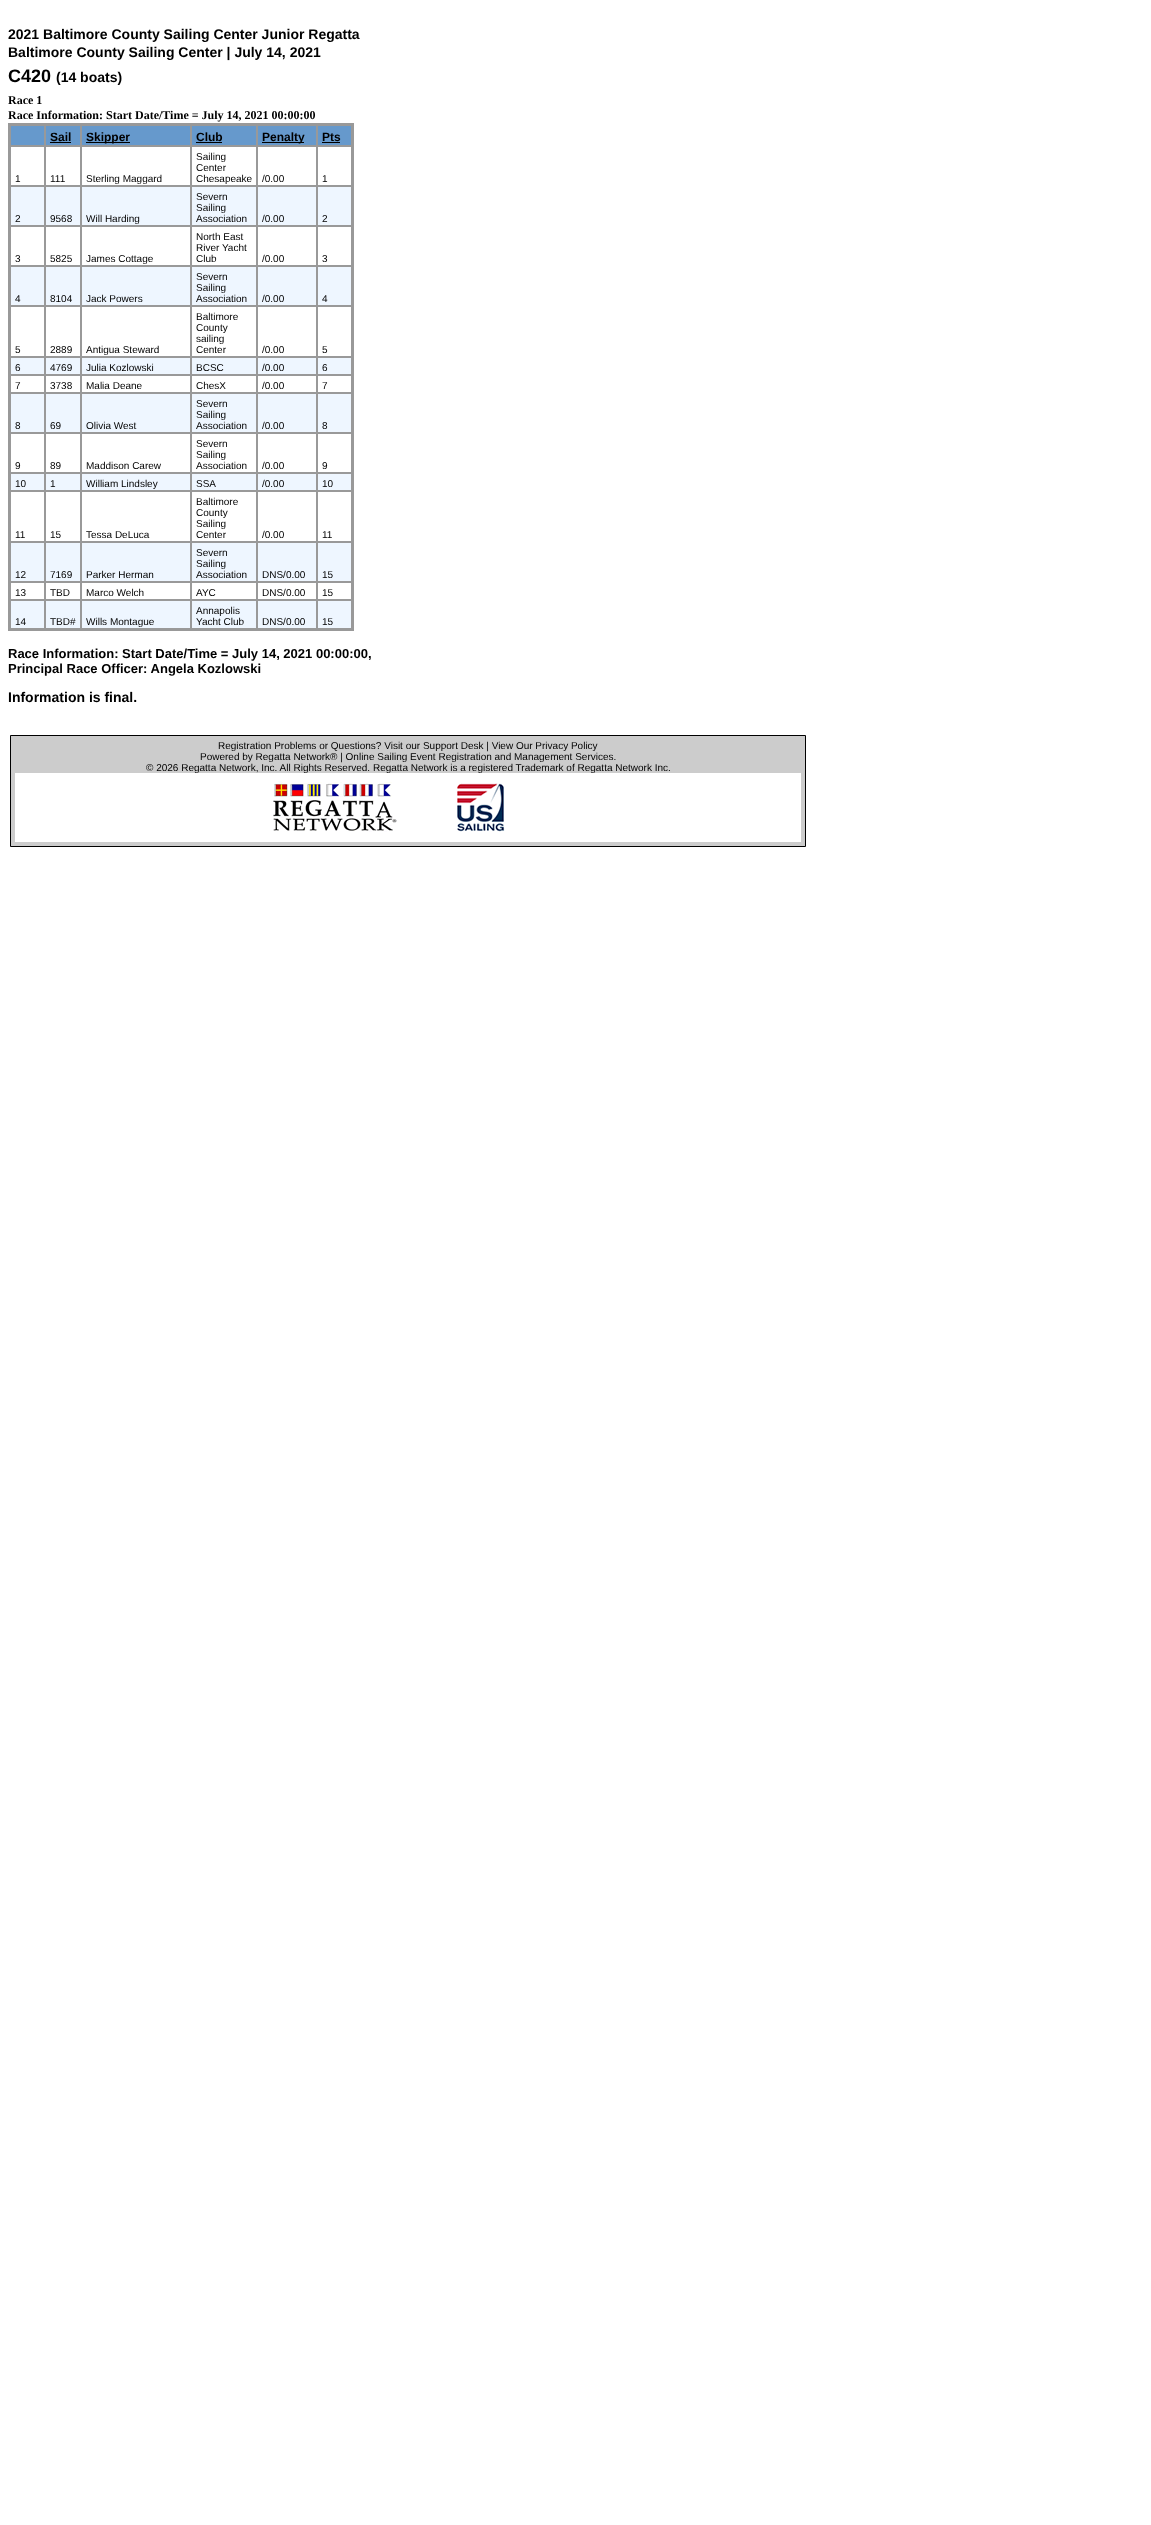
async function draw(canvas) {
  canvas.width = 1151
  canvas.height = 2525
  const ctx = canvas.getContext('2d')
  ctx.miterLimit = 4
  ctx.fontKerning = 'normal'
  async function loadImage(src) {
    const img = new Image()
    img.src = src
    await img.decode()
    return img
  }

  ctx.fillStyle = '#fff'
  ctx.fillRect(0, 0, 1151, 2525)
  ctx.font = 'bold 14px Liberation Sans'
  ctx.fillStyle = '#000'
  ctx.fillText('2021 Baltimore County Sailing Center Junior Regatta', 8, 39)
  ctx.fillText('Baltimore County Sailing Center | July 14, 2021', 8, 57)
  ctx.font = 'bold 18px Liberation Sans'
  ctx.fillText('C420', 8, 82)
  ctx.font = 'bold 14px Liberation Sans'
  ctx.fillText('(14 boats)', 56, 82)
  ctx.font = 'bold 12px Liberation Serif'
  ctx.fillText('Race 1', 8, 104)
  ctx.fillText('Race Information: Start Date/Time = July 14, 2021 00:00:00', 8, 119)
  ctx.fillStyle = '#999'
  ctx.fillRect(8, 123, 346, 508)
  ctx.fillStyle = '#69c'
  ctx.fillRect(11, 126, 33, 19)
  ctx.fillRect(46, 126, 34, 19)
  ctx.font = 'bold 12px Liberation Sans'
  ctx.fillStyle = '#000'
  ctx.fillText('Sail', 50, 141)
  ctx.fillRect(50, 142, 21, 1)
  ctx.fillStyle = '#69c'
  ctx.fillRect(82, 126, 108, 19)
  ctx.fillStyle = '#000'
  ctx.fillRect(86, 142, 44, 1)
  ctx.fillText('Skipper', 86, 141)
  ctx.fillStyle = '#69c'
  ctx.fillRect(192, 126, 64, 19)
  ctx.fillStyle = '#000'
  ctx.fillText('Club', 196, 141)
  ctx.fillRect(196, 142, 26, 1)
  ctx.fillStyle = '#69c'
  ctx.fillRect(258, 126, 58, 19)
  ctx.fillStyle = '#000'
  ctx.fillRect(262, 142, 42, 1)
  ctx.fillText('Penalty', 262, 141)
  ctx.fillStyle = '#69c'
  ctx.fillRect(318, 126, 33, 19)
  ctx.fillStyle = '#000'
  ctx.fillText('Pts', 322, 141)
  ctx.fillRect(322, 142, 18, 1)
  ctx.fillStyle = '#fff'
  ctx.fillRect(11, 147, 33, 38)
  ctx.font = '10px Liberation Sans'
  ctx.fillStyle = '#000'
  ctx.fillText('1', 15, 182)
  ctx.fillStyle = '#fff'
  ctx.fillRect(46, 147, 34, 38)
  ctx.fillStyle = '#000'
  ctx.fillText('111', 50, 182)
  ctx.fillStyle = '#fff'
  ctx.fillRect(82, 147, 108, 38)
  ctx.fillStyle = '#000'
  ctx.fillText('Sterling Maggard', 86, 182)
  ctx.fillStyle = '#fff'
  ctx.fillRect(192, 147, 64, 38)
  ctx.fillStyle = '#000'
  ctx.fillText('Sailing', 196, 160)
  ctx.fillText('Center', 196, 171)
  ctx.fillText('Chesapeake', 196, 182)
  ctx.fillStyle = '#fff'
  ctx.fillRect(258, 147, 58, 38)
  ctx.fillStyle = '#000'
  ctx.fillText('/0.00', 262, 182)
  ctx.fillStyle = '#fff'
  ctx.fillRect(318, 147, 33, 38)
  ctx.fillStyle = '#000'
  ctx.fillText('1', 322, 182)
  ctx.fillStyle = '#eef6ff'
  ctx.fillRect(11, 187, 33, 38)
  ctx.fillStyle = '#000'
  ctx.fillText('2', 15, 222)
  ctx.fillStyle = '#eef6ff'
  ctx.fillRect(46, 187, 34, 38)
  ctx.fillStyle = '#000'
  ctx.fillText('9568', 50, 222)
  ctx.fillStyle = '#eef6ff'
  ctx.fillRect(82, 187, 108, 38)
  ctx.fillStyle = '#000'
  ctx.fillText('Will Harding', 86, 222)
  ctx.fillStyle = '#eef6ff'
  ctx.fillRect(192, 187, 64, 38)
  ctx.fillStyle = '#000'
  ctx.fillText('Severn', 196, 200)
  ctx.fillText('Sailing', 196, 211)
  ctx.fillText('Association', 196, 222)
  ctx.fillStyle = '#eef6ff'
  ctx.fillRect(258, 187, 58, 38)
  ctx.fillStyle = '#000'
  ctx.fillText('/0.00', 262, 222)
  ctx.fillStyle = '#eef6ff'
  ctx.fillRect(318, 187, 33, 38)
  ctx.fillStyle = '#000'
  ctx.fillText('2', 322, 222)
  ctx.fillStyle = '#fff'
  ctx.fillRect(11, 227, 33, 38)
  ctx.fillStyle = '#000'
  ctx.fillText('3', 15, 262)
  ctx.fillStyle = '#fff'
  ctx.fillRect(46, 227, 34, 38)
  ctx.fillStyle = '#000'
  ctx.fillText('5825', 50, 262)
  ctx.fillStyle = '#fff'
  ctx.fillRect(82, 227, 108, 38)
  ctx.fillStyle = '#000'
  ctx.fillText('James Cottage', 86, 262)
  ctx.fillStyle = '#fff'
  ctx.fillRect(192, 227, 64, 38)
  ctx.fillStyle = '#000'
  ctx.fillText('North East', 196, 240)
  ctx.fillText('River Yacht', 196, 251)
  ctx.fillText('Club', 196, 262)
  ctx.fillStyle = '#fff'
  ctx.fillRect(258, 227, 58, 38)
  ctx.fillStyle = '#000'
  ctx.fillText('/0.00', 262, 262)
  ctx.fillStyle = '#fff'
  ctx.fillRect(318, 227, 33, 38)
  ctx.fillStyle = '#000'
  ctx.fillText('3', 322, 262)
  ctx.fillStyle = '#eef6ff'
  ctx.fillRect(11, 267, 33, 38)
  ctx.fillStyle = '#000'
  ctx.fillText('4', 15, 302)
  ctx.fillStyle = '#eef6ff'
  ctx.fillRect(46, 267, 34, 38)
  ctx.fillStyle = '#000'
  ctx.fillText('8104', 50, 302)
  ctx.fillStyle = '#eef6ff'
  ctx.fillRect(82, 267, 108, 38)
  ctx.fillStyle = '#000'
  ctx.fillText('Jack Powers', 86, 302)
  ctx.fillStyle = '#eef6ff'
  ctx.fillRect(192, 267, 64, 38)
  ctx.fillStyle = '#000'
  ctx.fillText('Severn', 196, 280)
  ctx.fillText('Sailing', 196, 291)
  ctx.fillText('Association', 196, 302)
  ctx.fillStyle = '#eef6ff'
  ctx.fillRect(258, 267, 58, 38)
  ctx.fillStyle = '#000'
  ctx.fillText('/0.00', 262, 302)
  ctx.fillStyle = '#eef6ff'
  ctx.fillRect(318, 267, 33, 38)
  ctx.fillStyle = '#000'
  ctx.fillText('4', 322, 302)
  ctx.fillStyle = '#fff'
  ctx.fillRect(11, 307, 33, 49)
  ctx.fillStyle = '#000'
  ctx.fillText('5', 15, 353)
  ctx.fillStyle = '#fff'
  ctx.fillRect(46, 307, 34, 49)
  ctx.fillStyle = '#000'
  ctx.fillText('2889', 50, 353)
  ctx.fillStyle = '#fff'
  ctx.fillRect(82, 307, 108, 49)
  ctx.fillStyle = '#000'
  ctx.fillText('Antigua Steward', 86, 353)
  ctx.fillStyle = '#fff'
  ctx.fillRect(192, 307, 64, 49)
  ctx.fillStyle = '#000'
  ctx.fillText('Baltimore', 196, 320)
  ctx.fillText('County', 196, 331)
  ctx.fillText('sailing', 196, 342)
  ctx.fillText('Center', 196, 353)
  ctx.fillStyle = '#fff'
  ctx.fillRect(258, 307, 58, 49)
  ctx.fillStyle = '#000'
  ctx.fillText('/0.00', 262, 353)
  ctx.fillStyle = '#fff'
  ctx.fillRect(318, 307, 33, 49)
  ctx.fillStyle = '#000'
  ctx.fillText('5', 322, 353)
  ctx.fillStyle = '#eef6ff'
  ctx.fillRect(11, 358, 33, 16)
  ctx.fillStyle = '#000'
  ctx.fillText('6', 15, 371)
  ctx.fillStyle = '#eef6ff'
  ctx.fillRect(46, 358, 34, 16)
  ctx.fillStyle = '#000'
  ctx.fillText('4769', 50, 371)
  ctx.fillStyle = '#eef6ff'
  ctx.fillRect(82, 358, 108, 16)
  ctx.fillStyle = '#000'
  ctx.fillText('Julia Kozlowski', 86, 371)
  ctx.fillStyle = '#eef6ff'
  ctx.fillRect(192, 358, 64, 16)
  ctx.fillStyle = '#000'
  ctx.fillText('BCSC', 196, 371)
  ctx.fillStyle = '#eef6ff'
  ctx.fillRect(258, 358, 58, 16)
  ctx.fillStyle = '#000'
  ctx.fillText('/0.00', 262, 371)
  ctx.fillStyle = '#eef6ff'
  ctx.fillRect(318, 358, 33, 16)
  ctx.fillStyle = '#000'
  ctx.fillText('6', 322, 371)
  ctx.fillStyle = '#fff'
  ctx.fillRect(11, 376, 33, 16)
  ctx.fillStyle = '#000'
  ctx.fillText('7', 15, 389)
  ctx.fillStyle = '#fff'
  ctx.fillRect(46, 376, 34, 16)
  ctx.fillStyle = '#000'
  ctx.fillText('3738', 50, 389)
  ctx.fillStyle = '#fff'
  ctx.fillRect(82, 376, 108, 16)
  ctx.fillStyle = '#000'
  ctx.fillText('Malia Deane', 86, 389)
  ctx.fillStyle = '#fff'
  ctx.fillRect(192, 376, 64, 16)
  ctx.fillStyle = '#000'
  ctx.fillText('ChesX', 196, 389)
  ctx.fillStyle = '#fff'
  ctx.fillRect(258, 376, 58, 16)
  ctx.fillStyle = '#000'
  ctx.fillText('/0.00', 262, 389)
  ctx.fillStyle = '#fff'
  ctx.fillRect(318, 376, 33, 16)
  ctx.fillStyle = '#000'
  ctx.fillText('7', 322, 389)
  ctx.fillStyle = '#eef6ff'
  ctx.fillRect(11, 394, 33, 38)
  ctx.fillStyle = '#000'
  ctx.fillText('8', 15, 429)
  ctx.fillStyle = '#eef6ff'
  ctx.fillRect(46, 394, 34, 38)
  ctx.fillStyle = '#000'
  ctx.fillText('69', 50, 429)
  ctx.fillStyle = '#eef6ff'
  ctx.fillRect(82, 394, 108, 38)
  ctx.fillStyle = '#000'
  ctx.fillText('Olivia West', 86, 429)
  ctx.fillStyle = '#eef6ff'
  ctx.fillRect(192, 394, 64, 38)
  ctx.fillStyle = '#000'
  ctx.fillText('Severn', 196, 407)
  ctx.fillText('Sailing', 196, 418)
  ctx.fillText('Association', 196, 429)
  ctx.fillStyle = '#eef6ff'
  ctx.fillRect(258, 394, 58, 38)
  ctx.fillStyle = '#000'
  ctx.fillText('/0.00', 262, 429)
  ctx.fillStyle = '#eef6ff'
  ctx.fillRect(318, 394, 33, 38)
  ctx.fillStyle = '#000'
  ctx.fillText('8', 322, 429)
  ctx.fillStyle = '#fff'
  ctx.fillRect(11, 434, 33, 38)
  ctx.fillStyle = '#000'
  ctx.fillText('9', 15, 469)
  ctx.fillStyle = '#fff'
  ctx.fillRect(46, 434, 34, 38)
  ctx.fillStyle = '#000'
  ctx.fillText('89', 50, 469)
  ctx.fillStyle = '#fff'
  ctx.fillRect(82, 434, 108, 38)
  ctx.fillStyle = '#000'
  ctx.fillText('Maddison Carew', 86, 469)
  ctx.fillStyle = '#fff'
  ctx.fillRect(192, 434, 64, 38)
  ctx.fillStyle = '#000'
  ctx.fillText('Severn', 196, 447)
  ctx.fillText('Sailing', 196, 458)
  ctx.fillText('Association', 196, 469)
  ctx.fillStyle = '#fff'
  ctx.fillRect(258, 434, 58, 38)
  ctx.fillStyle = '#000'
  ctx.fillText('/0.00', 262, 469)
  ctx.fillStyle = '#fff'
  ctx.fillRect(318, 434, 33, 38)
  ctx.fillStyle = '#000'
  ctx.fillText('9', 322, 469)
  ctx.fillStyle = '#eef6ff'
  ctx.fillRect(11, 474, 33, 16)
  ctx.fillStyle = '#000'
  ctx.fillText('10', 15, 487)
  ctx.fillStyle = '#eef6ff'
  ctx.fillRect(46, 474, 34, 16)
  ctx.fillStyle = '#000'
  ctx.fillText('1', 50, 487)
  ctx.fillStyle = '#eef6ff'
  ctx.fillRect(82, 474, 108, 16)
  ctx.fillStyle = '#000'
  ctx.fillText('William Lindsley', 86, 487)
  ctx.fillStyle = '#eef6ff'
  ctx.fillRect(192, 474, 64, 16)
  ctx.fillStyle = '#000'
  ctx.fillText('SSA', 196, 487)
  ctx.fillStyle = '#eef6ff'
  ctx.fillRect(258, 474, 58, 16)
  ctx.fillStyle = '#000'
  ctx.fillText('/0.00', 262, 487)
  ctx.fillStyle = '#eef6ff'
  ctx.fillRect(318, 474, 33, 16)
  ctx.fillStyle = '#000'
  ctx.fillText('10', 322, 487)
  ctx.fillStyle = '#fff'
  ctx.fillRect(11, 492, 33, 49)
  ctx.fillStyle = '#000'
  ctx.fillText('11', 15, 538)
  ctx.fillStyle = '#fff'
  ctx.fillRect(46, 492, 34, 49)
  ctx.fillStyle = '#000'
  ctx.fillText('15', 50, 538)
  ctx.fillStyle = '#fff'
  ctx.fillRect(82, 492, 108, 49)
  ctx.fillStyle = '#000'
  ctx.fillText('Tessa DeLuca', 86, 538)
  ctx.fillStyle = '#fff'
  ctx.fillRect(192, 492, 64, 49)
  ctx.fillStyle = '#000'
  ctx.fillText('Baltimore', 196, 505)
  ctx.fillText('County', 196, 516)
  ctx.fillText('Sailing', 196, 527)
  ctx.fillText('Center', 196, 538)
  ctx.fillStyle = '#fff'
  ctx.fillRect(258, 492, 58, 49)
  ctx.fillStyle = '#000'
  ctx.fillText('/0.00', 262, 538)
  ctx.fillStyle = '#fff'
  ctx.fillRect(318, 492, 33, 49)
  ctx.fillStyle = '#000'
  ctx.fillText('11', 322, 538)
  ctx.fillStyle = '#eef6ff'
  ctx.fillRect(11, 543, 33, 38)
  ctx.fillStyle = '#000'
  ctx.fillText('12', 15, 578)
  ctx.fillStyle = '#eef6ff'
  ctx.fillRect(46, 543, 34, 38)
  ctx.fillStyle = '#000'
  ctx.fillText('7169', 50, 578)
  ctx.fillStyle = '#eef6ff'
  ctx.fillRect(82, 543, 108, 38)
  ctx.fillStyle = '#000'
  ctx.fillText('Parker Herman', 86, 578)
  ctx.fillStyle = '#eef6ff'
  ctx.fillRect(192, 543, 64, 38)
  ctx.fillStyle = '#000'
  ctx.fillText('Severn', 196, 556)
  ctx.fillText('Sailing', 196, 567)
  ctx.fillText('Association', 196, 578)
  ctx.fillStyle = '#eef6ff'
  ctx.fillRect(258, 543, 58, 38)
  ctx.fillStyle = '#000'
  ctx.fillText('DNS/0.00', 262, 578)
  ctx.fillStyle = '#eef6ff'
  ctx.fillRect(318, 543, 33, 38)
  ctx.fillStyle = '#000'
  ctx.fillText('15', 322, 578)
  ctx.fillStyle = '#fff'
  ctx.fillRect(11, 583, 33, 16)
  ctx.fillStyle = '#000'
  ctx.fillText('13', 15, 596)
  ctx.fillStyle = '#fff'
  ctx.fillRect(46, 583, 34, 16)
  ctx.fillStyle = '#000'
  ctx.fillText('TBD', 50, 596)
  ctx.fillStyle = '#fff'
  ctx.fillRect(82, 583, 108, 16)
  ctx.fillStyle = '#000'
  ctx.fillText('Marco Welch', 86, 596)
  ctx.fillStyle = '#fff'
  ctx.fillRect(192, 583, 64, 16)
  ctx.fillStyle = '#000'
  ctx.fillText('AYC', 196, 596)
  ctx.fillStyle = '#fff'
  ctx.fillRect(258, 583, 58, 16)
  ctx.fillStyle = '#000'
  ctx.fillText('DNS/0.00', 262, 596)
  ctx.fillStyle = '#fff'
  ctx.fillRect(318, 583, 33, 16)
  ctx.fillStyle = '#000'
  ctx.fillText('15', 322, 596)
  ctx.fillStyle = '#eef6ff'
  ctx.fillRect(11, 601, 33, 27)
  ctx.fillStyle = '#000'
  ctx.fillText('14', 15, 625)
  ctx.fillStyle = '#eef6ff'
  ctx.fillRect(46, 601, 34, 27)
  ctx.fillStyle = '#000'
  ctx.fillText('TBD#', 50, 625)
  ctx.fillStyle = '#eef6ff'
  ctx.fillRect(82, 601, 108, 27)
  ctx.fillStyle = '#000'
  ctx.fillText('Wills Montague', 86, 625)
  ctx.fillStyle = '#eef6ff'
  ctx.fillRect(192, 601, 64, 27)
  ctx.fillStyle = '#000'
  ctx.fillText('Annapolis', 196, 614)
  ctx.fillText('Yacht Club', 196, 625)
  ctx.fillStyle = '#eef6ff'
  ctx.fillRect(258, 601, 58, 27)
  ctx.fillStyle = '#000'
  ctx.fillText('DNS/0.00', 262, 625)
  ctx.fillStyle = '#eef6ff'
  ctx.fillRect(318, 601, 33, 27)
  ctx.fillStyle = '#000'
  ctx.fillText('15', 322, 625)
  ctx.font = 'bold 13px Liberation Sans'
  ctx.fillText('Race Information: Start Date/Time = July 14, 2021 00:00:00,', 8, 658)
  ctx.fillText('Principal Race Officer: Angela Kozlowski', 8, 673)
  ctx.font = 'bold 14px Liberation Sans'
  ctx.fillText('Information is final.', 8, 702)
  ctx.fillStyle = '#ccc'
  ctx.beginPath()
  ctx.rect(10.5, 735.5, 795, 111)
  ctx.fill()
  ctx.strokeStyle = '#000'
  ctx.stroke()
  ctx.font = '10px Liberation Sans'
  ctx.fillStyle = '#000'
  ctx.fillText('Registration Problems or Questions? Visit our Support Desk | View Our Privacy Policy', 218, 749)
  ctx.fillText('Powered by Regatta Network® | Online Sailing Event Registration and Management Services.', 200, 760)
  ctx.fillStyle = '#fff'
  ctx.fillRect(15, 773, 786, 69)
  ctx.fillStyle = '#000'
  ctx.fillText('© 2026 Regatta Network, Inc. All Rights Reserved. Regatta Network is a registered Trademark of Regatta Network Inc.', 146, 771)
  ctx.drawImage(await loadImage('image0.png'), 273, 773, 124, 59)
  ctx.drawImage(await loadImage('image1.png'), 457, 773, 48, 59)
}

draw(document.querySelector('canvas'))
